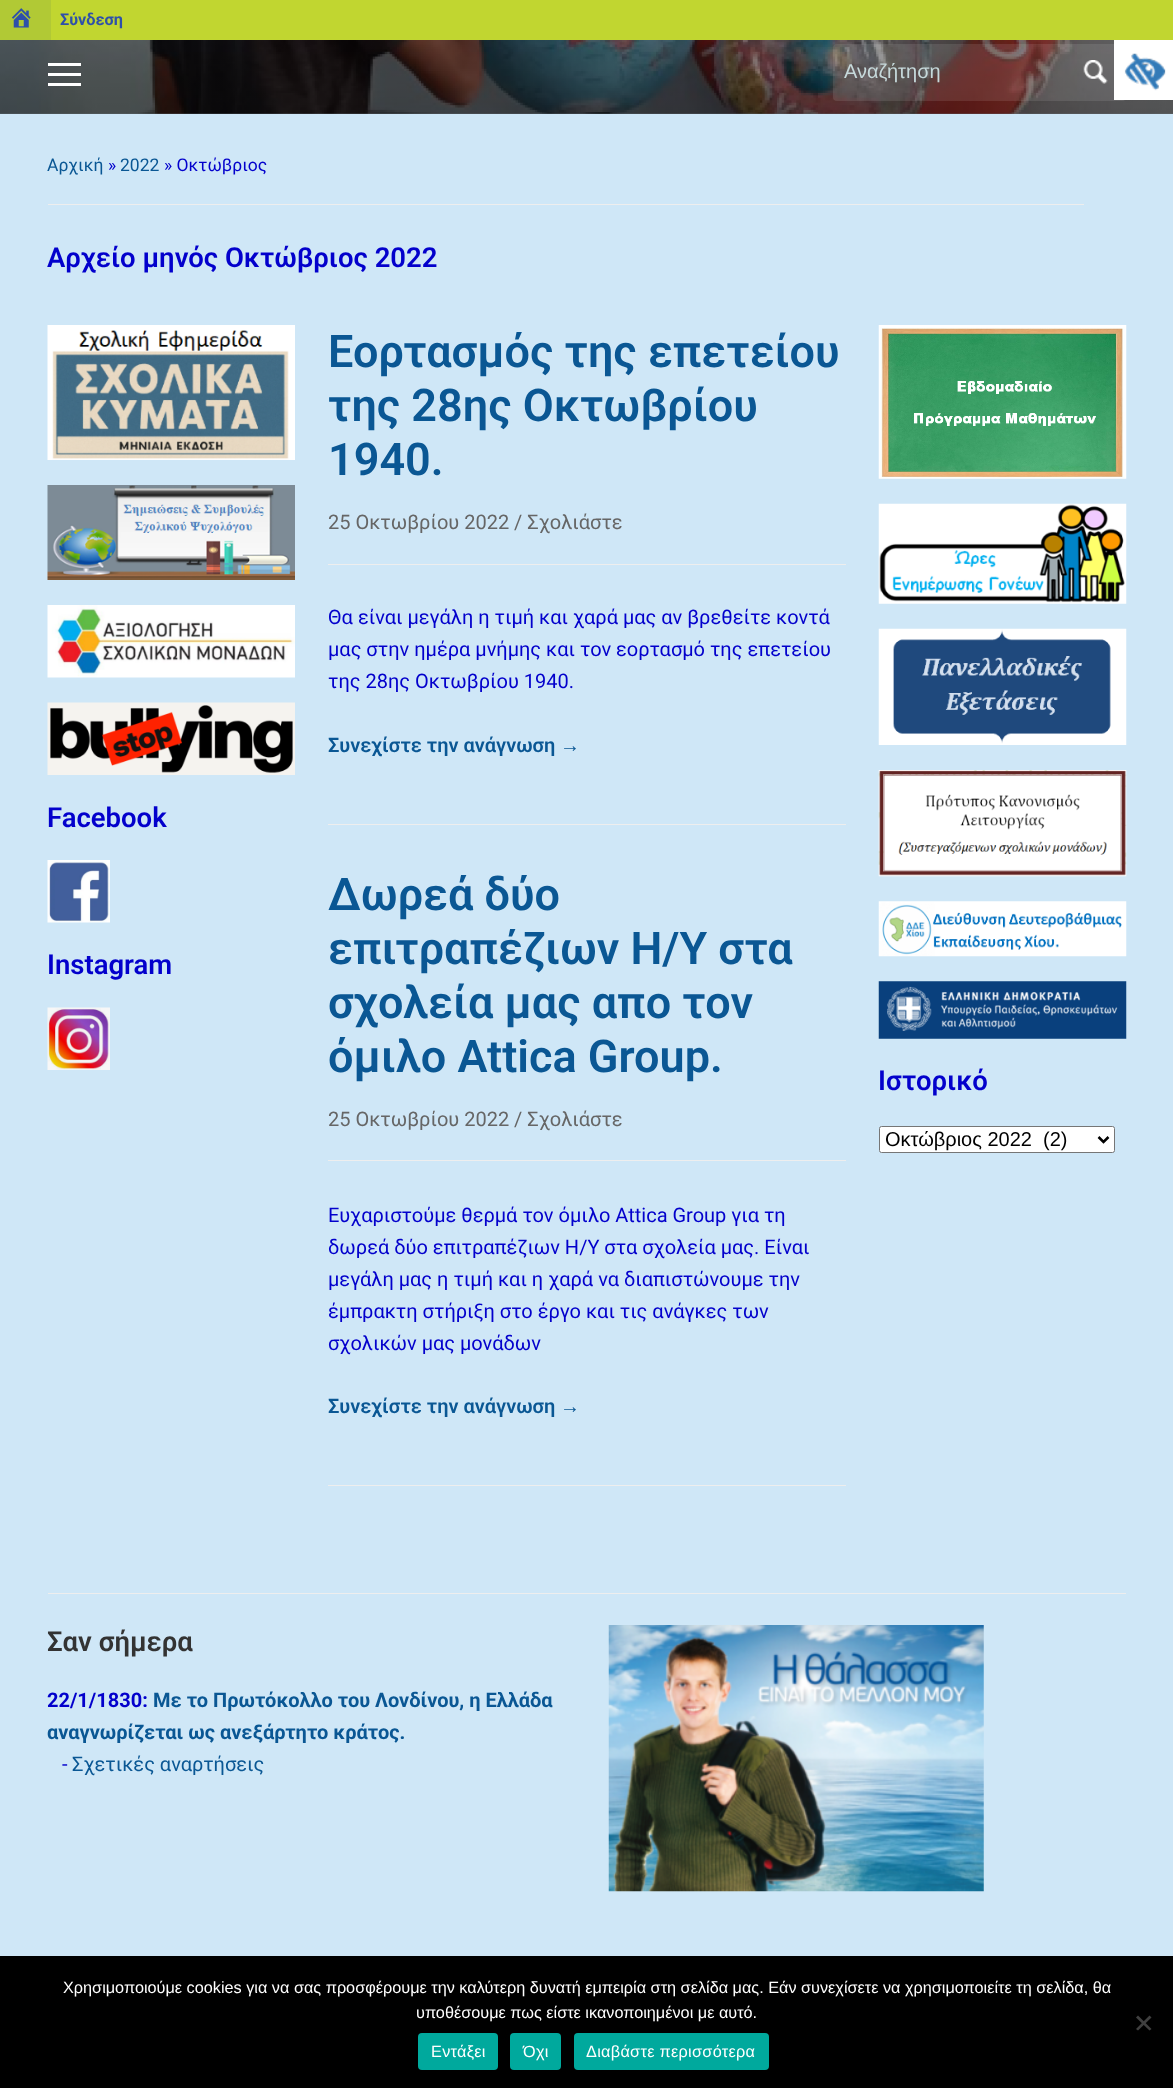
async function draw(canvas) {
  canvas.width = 1173
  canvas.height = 2088
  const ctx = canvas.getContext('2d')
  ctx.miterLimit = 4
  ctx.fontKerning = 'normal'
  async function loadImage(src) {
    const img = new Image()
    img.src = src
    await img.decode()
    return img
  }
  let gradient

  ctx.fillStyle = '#cfe7f7'
  ctx.fillRect(0, 0, 1173, 2088)
  ctx.fillStyle = '#c1d630'
  ctx.fillRect(51, 0, 1122, 40)
  ctx.fillStyle = '#b1c935'
  ctx.fillRect(0, 0, 51, 40)
  ctx.drawImage(await loadImage('image0.png'), 11, 8, 20, 20)
  ctx.font = 'bold 16.25px Roboto'
  ctx.fillStyle = '#2e50aa'
  ctx.fillText('Σύνδεση', 60, 25)
  ctx.drawImage(await loadImage('image1.png'), 0, 40, 1173, 74)
  gradient = ctx.createLinearGradient(587, -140, 587, 114)
  gradient.addColorStop(0, '#0000004d')
  gradient.addColorStop(1, '#00000080')
  ctx.fillStyle = gradient
  ctx.fillRect(0, 40, 1173, 74)
  ctx.fillStyle = '#fff'
  ctx.fillRect(48, 63, 33, 3)
  ctx.fillRect(48, 73, 33, 3)
  ctx.fillRect(48, 83, 33, 3)
  ctx.fillStyle = '#ffffff1a'
  ctx.beginPath()
  ctx.roundRect(833, 44, 293, 57, 4)
  ctx.fill()
  ctx.font = '20px Liberation Sans'
  ctx.fillStyle = '#c6d9db'
  ctx.fillText('Αναζήτηση', 844, 78)
  ctx.drawImage(await loadImage('image2.png'), 1083, 60, 25, 24)
  ctx.fillStyle = '#fff'
  ctx.fillRect(1114, 40, 59, 60)
  ctx.drawImage(await loadImage('image3.png'), 1124, 53, 42, 38)
  ctx.fillStyle = '#eee'
  ctx.fillRect(48, 204, 1036, 1)
  ctx.font = '17.5px Roboto'
  ctx.fillStyle = '#0a5794'
  ctx.fillText('Αρχική', 47, 171)
  ctx.fillStyle = '#0300cc'
  ctx.fillText('»', 108, 171)
  ctx.fillStyle = '#0a5794'
  ctx.fillText('2022', 120, 171)
  ctx.fillStyle = '#0300cc'
  ctx.fillText('» Οκτώβριος', 164, 171)
  ctx.font = '600 27.5px Roboto'
  ctx.fillText('Αρχείο μηνός Οκτώβριος 2022', 47, 267)
  ctx.drawImage(await loadImage('image4.png'), 47, 325, 248, 135)
  ctx.drawImage(await loadImage('image5.png'), 47, 485, 248, 95)
  ctx.drawImage(await loadImage('image6.png'), 47, 605, 248, 73)
  ctx.drawImage(await loadImage('image7.png'), 47, 702, 248, 73)
  ctx.fillText('Facebook', 47, 827)
  ctx.drawImage(await loadImage('image8.png'), 47, 860, 63, 63)
  ctx.fillText('Instagram', 47, 974)
  ctx.drawImage(await loadImage('image9.png'), 47, 1007, 63, 63)
  ctx.fillStyle = '#eee'
  ctx.fillRect(328, 824, 518, 1)
  ctx.font = '600 45px Roboto'
  ctx.fillStyle = '#0a5794'
  ctx.fillText('Εορτασμός της επετείου', 328, 367)
  ctx.fillText('της 28ης Οκτωβρίου', 328, 421)
  ctx.fillText('1940.', 328, 475)
  ctx.fillStyle = '#eee'
  ctx.fillRect(328, 564, 518, 1)
  ctx.font = '20px Roboto'
  ctx.fillStyle = '#666'
  ctx.fillText('25 Οκτωβρίου 2022 / Σχολιάστε', 328, 529)
  ctx.fillStyle = '#0300cc'
  ctx.fillText('Θα είναι μεγάλη η τιμή και χαρά μας αν βρεθείτε κοντά', 328, 624)
  ctx.fillText('μας στην ημέρα μνήμης και τον εορτασμό της επετείου', 328, 656)
  ctx.fillText('της 28ης Οκτωβρίου 1940.', 328, 688)
  ctx.font = '600 20px Roboto'
  ctx.fillStyle = '#0a5794'
  ctx.fillText('Συνεχίστε την ανάγνωση', 328, 752)
  ctx.font = 'bold 20px Liberation Sans'
  ctx.fillText('→', 560, 752)
  ctx.fillStyle = '#eee'
  ctx.fillRect(328, 1485, 518, 1)
  ctx.font = '600 45px Roboto'
  ctx.fillStyle = '#0a5794'
  ctx.fillText('Δωρεά δύο', 328, 910)
  ctx.fillText('επιτραπέζιων Η/Υ στα', 328, 964)
  ctx.fillText('σχολεία μας απο τον', 328, 1018)
  ctx.fillText('όμιλο Attica Group.', 328, 1072)
  ctx.fillStyle = '#eee'
  ctx.fillRect(328, 1160, 518, 1)
  ctx.font = '20px Roboto'
  ctx.fillStyle = '#666'
  ctx.fillText('25 Οκτωβρίου 2022 / Σχολιάστε', 328, 1126)
  ctx.fillStyle = '#0300cc'
  ctx.fillText('Ευχαριστούμε θερμά τον όμιλο Attica Group για τη', 328, 1222)
  ctx.fillText('δωρεά δύο επιτραπέζιων Η/Υ στα σχολεία μας. Είναι', 328, 1254)
  ctx.fillText('μεγάλη μας η τιμή και η χαρά να διαπιστώνουμε την', 328, 1286)
  ctx.fillText('έμπρακτη στήριξη στο έργο και τις ανάγκες των', 328, 1318)
  ctx.fillText('σχολικών μας μονάδων', 328, 1350)
  ctx.font = '600 20px Roboto'
  ctx.fillStyle = '#0a5794'
  ctx.fillText('Συνεχίστε την ανάγνωση', 328, 1413)
  ctx.font = 'bold 20px Liberation Sans'
  ctx.fillText('→', 560, 1413)
  ctx.drawImage(await loadImage('image10.png'), 878, 325, 249, 154)
  ctx.drawImage(await loadImage('image11.png'), 878, 503, 249, 101)
  ctx.drawImage(await loadImage('image12.png'), 878, 628, 249, 117)
  ctx.drawImage(await loadImage('image13.png'), 878, 770, 249, 107)
  ctx.drawImage(await loadImage('image14.png'), 878, 901, 249, 56)
  ctx.drawImage(await loadImage('image15.png'), 878, 981, 249, 58)
  ctx.font = '600 27.5px Roboto'
  ctx.fillStyle = '#0300cc'
  ctx.fillText('Ιστορικό', 878, 1090)
  ctx.fillStyle = '#fff'
  ctx.beginPath()
  ctx.roundRect(879.5, 1126.5, 235, 26, 2)
  ctx.fill()
  ctx.strokeStyle = '#767676'
  ctx.stroke()
  ctx.beginPath()
  ctx.moveTo(1098.5, 1137)
  ctx.lineTo(1103.5, 1142)
  ctx.lineTo(1108.5, 1137)
  ctx.strokeStyle = '#000'
  ctx.lineWidth = 2.5
  ctx.stroke()
  ctx.font = '20px Liberation Sans'
  ctx.fillStyle = '#000'
  ctx.fillText('Οκτώβριος 2022  (2)', 885, 1146)
  ctx.fillStyle = '#eee'
  ctx.fillRect(48, 1593, 1078, 1)
  ctx.font = '600 27.5px Roboto'
  ctx.fillStyle = '#333'
  ctx.fillText('Σαν σήμερα', 47, 1651)
  ctx.font = 'bold 20px Roboto'
  ctx.fillStyle = '#0300cc'
  ctx.fillText('22/1/1830:', 47, 1707)
  ctx.fillStyle = '#0a5794'
  ctx.fillText('Με το Πρωτόκολλο του Λονδίνου, η Ελλάδα', 153, 1707)
  ctx.fillText('αναγνωρίζεται ως ανεξάρτητο κράτος.', 47, 1739)
  ctx.font = '20px Roboto'
  ctx.fillStyle = '#0300cc'
  ctx.fillText('-', 62, 1771)
  ctx.fillStyle = '#0a5794'
  ctx.fillText('Σχετικές αναρτήσεις', 72, 1771)
  ctx.drawImage(await loadImage('image16.png'), 608, 1625, 376, 267)
  ctx.fillStyle = '#000'
  ctx.fillRect(0, 1956, 1173, 132)
  ctx.font = '16.25px Liberation Sans'
  ctx.fillStyle = '#fff'
  ctx.fillText('Χρησιμοποιούμε cookies για να σας προσφέρουμε την καλύτερη δυνατή εμπειρία στη σελίδα μας. Εάν συνεχίσετε να χρησιμοποιείτε τη σελίδα, θα', 63, 1993)
  ctx.fillText('υποθέσουμε πως είστε ικανοποιημένοι με αυτό.', 416, 2018)
  ctx.fillStyle = '#404040'
  ctx.beginPath()
  ctx.moveTo(1149.5, 2015.5)
  ctx.lineTo(1151.5, 2017.5)
  ctx.lineTo(1138, 2030.5)
  ctx.lineTo(1136, 2029)
  ctx.closePath()
  ctx.fill()
  ctx.beginPath()
  ctx.moveTo(1136, 2017.5)
  ctx.lineTo(1138, 2015.5)
  ctx.lineTo(1151.5, 2029)
  ctx.lineTo(1149.5, 2030.5)
  ctx.closePath()
  ctx.fill()
  ctx.fillStyle = '#00a99d'
  ctx.beginPath()
  ctx.roundRect(418, 2033, 80, 37, 4)
  ctx.fill()
  ctx.letterSpacing = '0.3px'
  ctx.fillStyle = '#fff'
  ctx.fillText('Εντάξει', 431, 2057)
  ctx.fillStyle = '#00a99d'
  ctx.beginPath()
  ctx.roundRect(510, 2033, 51, 37, 4)
  ctx.fill()
  ctx.fillStyle = '#fff'
  ctx.fillText('Όχι', 523, 2057)
  ctx.fillStyle = '#00a99d'
  ctx.beginPath()
  ctx.roundRect(574, 2033, 195, 37, 4)
  ctx.fill()
  ctx.fillStyle = '#fff'
  ctx.fillText('Διαβάστε περισσότερα', 586, 2057)
}

draw(document.querySelector('canvas'))
